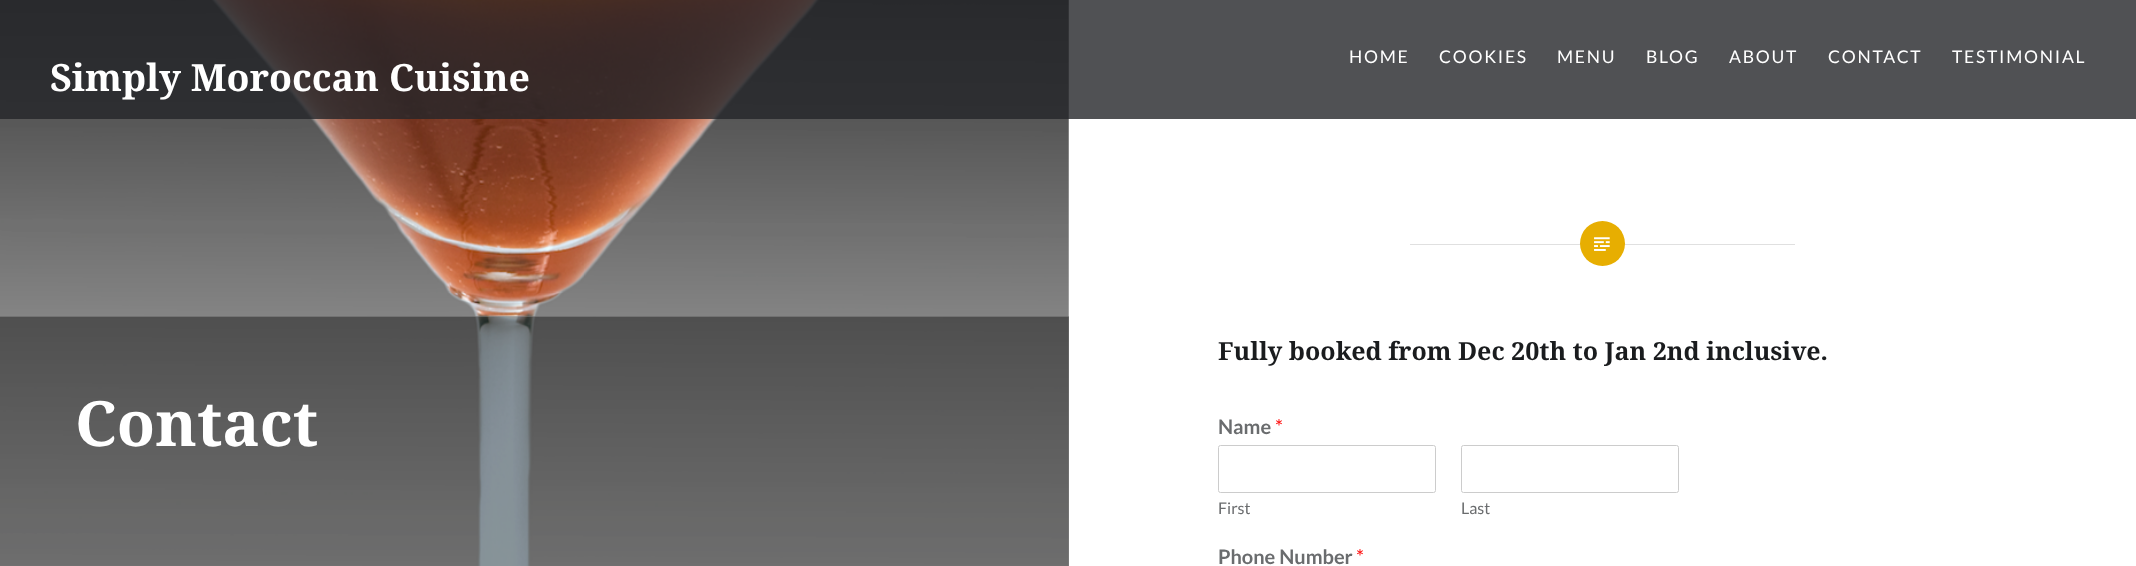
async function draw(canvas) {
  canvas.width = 2136
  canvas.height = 566
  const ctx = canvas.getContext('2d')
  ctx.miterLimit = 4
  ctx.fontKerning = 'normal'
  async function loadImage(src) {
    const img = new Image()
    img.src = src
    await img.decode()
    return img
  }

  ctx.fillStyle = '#fff'
  ctx.fillRect(0, 0, 2136, 566)
  ctx.drawImage(await loadImage('image0.png'), 0, 0, 1069, 566)
  ctx.fillStyle = '#242629cc'
  ctx.fillRect(0, 0, 2136, 119)
  ctx.letterSpacing = '1.75px'
  ctx.font = '17.5px Lato'
  ctx.fillStyle = '#fff'
  ctx.fillText('HOME', 1349, 63)
  ctx.fillText('COOKIES', 1439, 63)
  ctx.fillText('MENU', 1557, 63)
  ctx.fillText('BLOG', 1646, 63)
  ctx.fillText('ABOUT', 1729, 63)
  ctx.fillText('CONTACT', 1828, 63)
  ctx.fillText('TESTIMONIAL', 1952, 63)
  ctx.letterSpacing = '0px'
  ctx.font = 'bold 37.5px Noto Serif'
  ctx.fillText('Simply Moroccan Cuisine', 50, 91)
  ctx.fillStyle = '#e0e0e0'
  ctx.fillRect(1410, 244, 385, 1)
  ctx.fillStyle = '#e7ae01'
  ctx.beginPath()
  ctx.arc(1602.5, 243.5, 22.5, 0, 2 * Math.PI)
  ctx.fill()
  ctx.drawImage(await loadImage('image1.png'), 1594, 237, 16, 14)
  ctx.fillStyle = '#00000066'
  ctx.fillRect(0, 316, 1069, 250)
  ctx.fillStyle = '#ffffff33'
  ctx.fillRect(0, 316, 1069, 1)
  ctx.font = 'bold 62.5px Noto Serif'
  ctx.fillStyle = '#fff'
  ctx.fillText('Contact', 75, 446)
  ctx.font = 'bold 25px Noto Serif'
  ctx.fillStyle = '#1a1c1e'
  ctx.fillText('Fully booked from Dec 20th to Jan 2nd inclusive.', 1218, 360)
  ctx.font = 'bold 20px Lato'
  ctx.fillStyle = '#6a6c6e'
  ctx.fillText('Name', 1218, 434)
  ctx.font = '20px Lato'
  ctx.fillStyle = '#f00'
  ctx.fillText('*', 1275, 434)
  ctx.beginPath()
  ctx.roundRect(1218.5, 445.5, 217, 47, 2)
  ctx.strokeStyle = '#ccc'
  ctx.stroke()
  ctx.font = '16px Lato'
  ctx.fillStyle = '#6a6c6e'
  ctx.fillText('First', 1218, 514)
  ctx.beginPath()
  ctx.roundRect(1461.5, 445.5, 217, 47, 2)
  ctx.stroke()
  ctx.fillText('Last', 1461, 514)
  ctx.font = 'bold 20px Lato'
  ctx.fillText('Phone Number', 1218, 564)
  ctx.font = '20px Lato'
  ctx.fillStyle = '#f00'
  ctx.fillText('*', 1356, 564)
}

draw(document.querySelector('canvas'))
